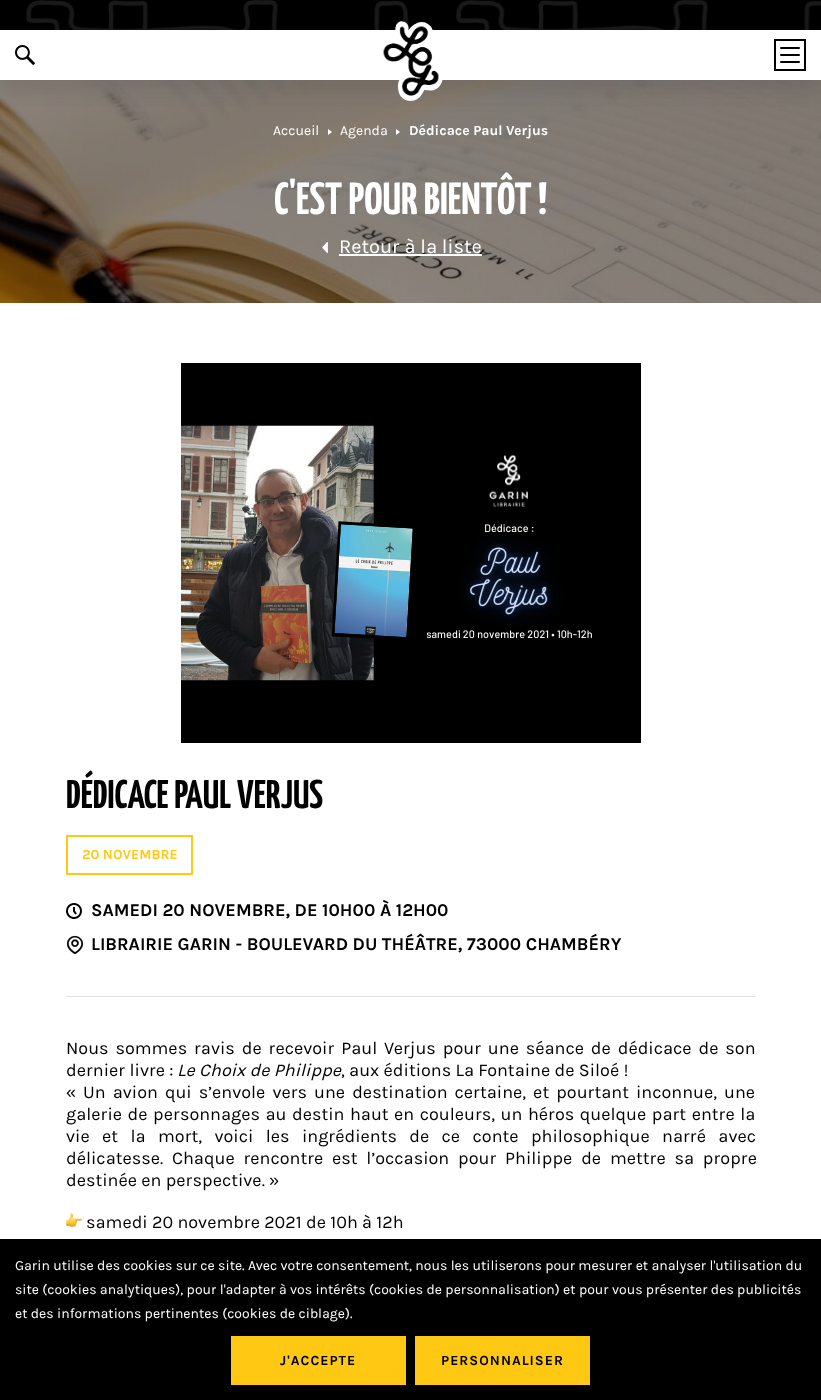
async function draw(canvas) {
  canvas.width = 821
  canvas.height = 1400
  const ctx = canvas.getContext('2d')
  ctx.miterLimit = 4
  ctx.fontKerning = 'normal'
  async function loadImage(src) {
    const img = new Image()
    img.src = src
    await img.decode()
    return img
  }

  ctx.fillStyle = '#fff'
  ctx.fillRect(0, 0, 821, 1400)
  ctx.fillStyle = '#000'
  ctx.fillRect(0, 80, 821, 223)
  ctx.drawImage(await loadImage('image3.png'), 0, 80, 821, 223)
  ctx.fillStyle = '#0000000d'
  ctx.filter = 'blur(10px)'
  ctx.beginPath()
  ctx.rect(0, 10, 821, 80)
  ctx.fill()
  ctx.filter = 'none'
  ctx.filter = 'blur(10px)'
  ctx.beginPath()
  ctx.rect(0, -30, 821, 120)
  ctx.fill()
  ctx.filter = 'none'
  ctx.fillStyle = '#fff'
  ctx.fillRect(0, 30, 821, 50)
  ctx.fillStyle = '#000'
  ctx.fillRect(0, 0, 821, 30)
  ctx.drawImage(await loadImage('image2.png'), 26, 0, 795, 30)
  ctx.drawImage(await loadImage('image0.png'), 383, 21, 60, 80)
  ctx.drawImage(await loadImage('image1.png'), 15, 45, 20, 20)
  ctx.strokeStyle = '#000'
  ctx.lineWidth = 2
  ctx.strokeRect(775, 40, 30, 30)
  ctx.beginPath()
  ctx.roundRect(780, 47, 20, 2, 1)
  ctx.fill()
  ctx.beginPath()
  ctx.roundRect(780, 54, 20, 2, 1)
  ctx.fill()
  ctx.beginPath()
  ctx.roundRect(780, 61, 20, 2, 1)
  ctx.fill()
  ctx.font = '14px Karla'
  ctx.fillStyle = '#fff'
  ctx.fillText('Accueil', 273, 135)
  ctx.beginPath()
  ctx.moveTo(328, 135)
  ctx.lineTo(328, 129)
  ctx.lineTo(332, 132)
  ctx.closePath()
  ctx.fill()
  ctx.fillText('Agenda', 340, 135)
  ctx.beginPath()
  ctx.moveTo(396, 135)
  ctx.lineTo(396, 129)
  ctx.lineTo(400, 132)
  ctx.closePath()
  ctx.fill()
  ctx.font = 'bold 14px Karla'
  ctx.fillText('Dédicace Paul Verjus', 409, 135)
  ctx.font = 'bold 45px Yanone Kaffeesatz'
  ctx.fillText('C\'EST POUR BIENTÔT !', 274, 214)
  ctx.drawImage(await loadImage('image4.png'), 322, 242, 6, 11)
  ctx.font = '20px Karla'
  ctx.fillText('Retour à la liste', 339, 253)
  ctx.fillRect(339, 254, 143, 2)
  ctx.drawImage(await loadImage('image5.png'), 181, 363, 460, 380)
  ctx.font = 'bold 40px Yanone Kaffeesatz'
  ctx.fillStyle = '#000'
  ctx.fillText('DÉDICACE PAUL VERJUS', 66, 808)
  ctx.strokeStyle = '#ffc812'
  ctx.strokeRect(67, 836, 125, 38)
  ctx.font = 'bold 14px Karla'
  ctx.fillStyle = '#ffc812'
  ctx.fillText('20 NOVEMBRE', 82, 859)
  ctx.drawImage(await loadImage('image6.png'), 66, 903, 16, 16)
  ctx.font = 'bold 18px Karla'
  ctx.fillStyle = '#000'
  ctx.fillText('SAMEDI 20 NOVEMBRE, DE 10H00 À 12H00', 91, 916)
  ctx.drawImage(await loadImage('image7.png'), 66, 935, 18, 20)
  ctx.fillText('LIBRAIRIE GARIN - BOULEVARD DU THÉÂTRE, 73000 CHAMBÉRY', 91, 950)
  ctx.fillStyle = '#e0e0e0'
  ctx.fillRect(66, 996, 690, 1)
  ctx.wordSpacing = '2.6px'
  ctx.font = '18px Karla'
  ctx.fillStyle = '#000'
  ctx.fillText('Nous sommes ravis de recevoir Paul Verjus pour une séance de dédicace de son', 66, 1054)
  ctx.wordSpacing = '0px'
  ctx.fillText('dernier livre :', 66, 1076)
  ctx.font = 'italic 18px Karla'
  ctx.fillText('Le Choix de Philippe', 177, 1076)
  ctx.font = '18px Karla'
  ctx.fillText(', aux éditions La Fontaine de Siloé !', 341, 1076)
  ctx.font = '18px Liberation Sans'
  ctx.fillText('«', 66, 1098)
  ctx.wordSpacing = '2.75px'
  ctx.font = '18px Karla'
  ctx.fillText('Un avion qui s’envole vers une destination certaine, et pourtant inconnue, une', 83, 1098)
  ctx.wordSpacing = '1.25px'
  ctx.fillText('galerie de personnages au destin haut en couleurs, un héros quelque part entre la', 66, 1120)
  ctx.wordSpacing = '8.1px'
  ctx.fillText('vie et la mort, voici les ingrédients de ce conte philosophique narré avec', 66, 1142)
  ctx.wordSpacing = '4.5px'
  ctx.fillText('délicatesse. Chaque rencontre est l’occasion pour Philippe de mettre sa propre', 66, 1164)
  ctx.wordSpacing = '0px'
  ctx.fillText('destinée en perspective.', 66, 1186)
  ctx.font = '18px Liberation Sans'
  ctx.fillText('»', 269, 1186)
  ctx.drawImage(await loadImage('image8.png'), 66, 1213, 16, 15)
  ctx.font = '18px Karla'
  ctx.fillText('samedi 20 novembre 2021 de 10h à 12h', 86, 1228)
  ctx.fillRect(0, 1239, 821, 161)
  ctx.font = '14px Karla'
  ctx.fillStyle = '#fff'
  ctx.fillText('Garin utilise des cookies sur ce site. Avec votre consentement, nous les utiliserons pour mesurer et analyser l\'utilisation du', 15, 1270)
  ctx.fillText('site (cookies analytiques), pour l\'adapter à vos intérêts (cookies de personnalisation) et pour vous présenter des publicités', 15, 1294)
  ctx.fillText('et des informations pertinentes (cookies de ciblage).', 15, 1318)
  ctx.fillStyle = '#ffc812'
  ctx.fillRect(231, 1336, 175, 49)
  ctx.letterSpacing = '1px'
  ctx.font = 'bold 14px Karla'
  ctx.fillStyle = '#000'
  ctx.fillText('J\'ACCEPTE', 280, 1365)
  ctx.fillStyle = '#ffc812'
  ctx.fillRect(415, 1336, 175, 49)
  ctx.fillStyle = '#000'
  ctx.fillText('PERSONNALISER', 441, 1365)
}

draw(document.querySelector('canvas'))
